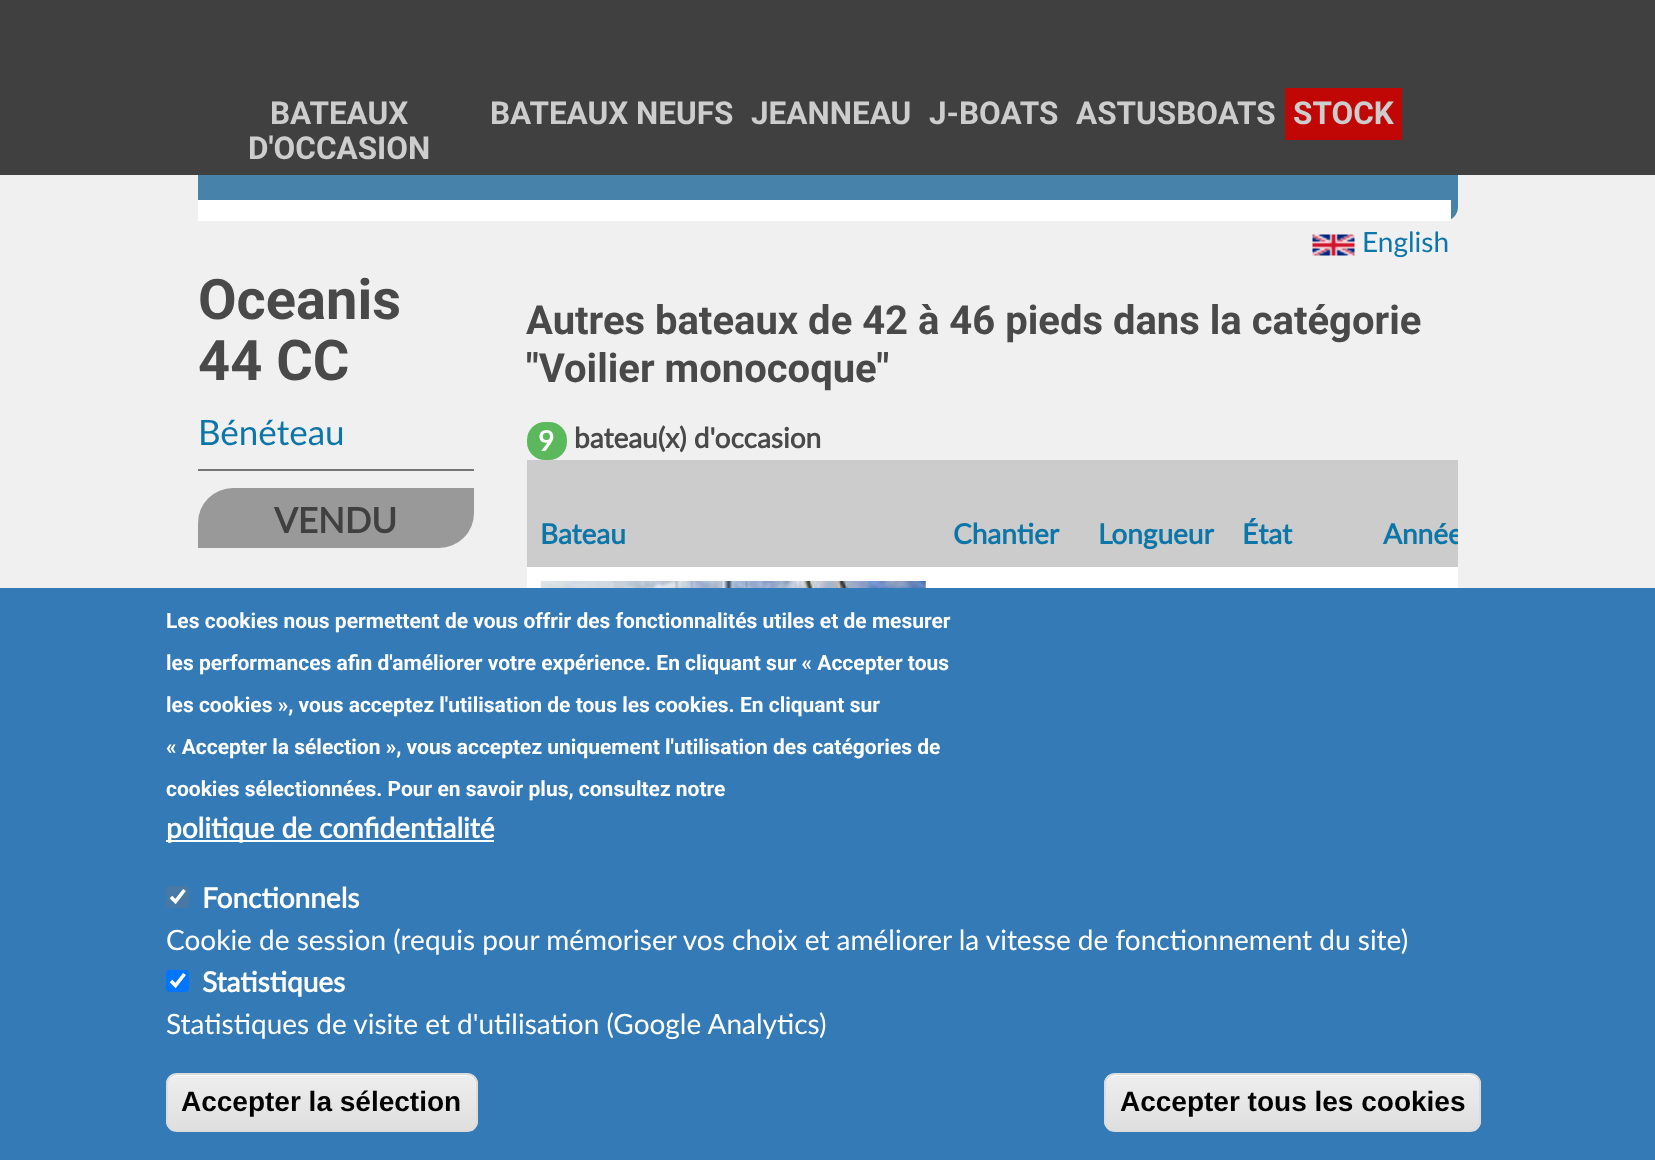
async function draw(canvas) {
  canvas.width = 1655
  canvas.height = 1160
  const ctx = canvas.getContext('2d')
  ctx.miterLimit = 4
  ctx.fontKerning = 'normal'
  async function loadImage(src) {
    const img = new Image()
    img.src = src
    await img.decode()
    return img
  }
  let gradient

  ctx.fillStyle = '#f0f0f0'
  ctx.fillRect(0, 0, 1655, 1160)
  ctx.fillStyle = '#4782ab'
  ctx.beginPath()
  ctx.roundRect(198, 102, 1260, 119, [14, 0, 14, 0])
  ctx.fill()
  ctx.fillStyle = '#404040'
  ctx.fillRect(0, 0, 1655, 175)
  ctx.font = 'bold 31.5px Roboto'
  ctx.fillStyle = '#cdcdcd'
  ctx.fillText('BATEAUX', 270, 124)
  ctx.fillText('D\'OCCASION', 248, 159)
  ctx.fillText('BATEAUX NEUFS', 490, 124)
  ctx.fillText('JEANNEAU', 751, 124)
  ctx.fillText('J-BOATS', 929, 124)
  ctx.fillText('ASTUSBOATS', 1076, 124)
  ctx.fillStyle = '#c10606'
  ctx.fillRect(1285, 88, 117, 52)
  ctx.fillStyle = '#cdcdcd'
  ctx.fillText('STOCK', 1293, 124)
  ctx.fillStyle = '#fff'
  ctx.fillRect(198, 200, 1253, 21)
  ctx.font = 'bold 56px Roboto'
  ctx.fillStyle = '#494949'
  ctx.fillText('Oceanis', 198, 319)
  ctx.fillText('44 CC', 198, 380)
  ctx.fillStyle = '#757575'
  ctx.fillRect(198, 469, 276, 2)
  ctx.font = '35px Lato'
  ctx.fillStyle = '#0d76a8'
  ctx.fillText('Bénéteau', 198, 445)
  ctx.fillStyle = '#999'
  ctx.beginPath()
  ctx.roundRect(198, 488, 276, 60, [35, 0, 35, 0])
  ctx.fill()
  ctx.font = 'bold 35px Lato'
  ctx.fillStyle = '#404040'
  ctx.fillText('VENDU', 274, 533)
  ctx.drawImage(await loadImage('image0.png'), 1312, 234, 43, 22)
  ctx.font = '28px Lato'
  ctx.fillStyle = '#0d76a8'
  ctx.fillText('English', 1362, 252)
  ctx.font = 'bold 40px Roboto'
  ctx.fillStyle = '#494949'
  ctx.fillText('Autres bateaux de 42 à 46 pieds dans la catégorie', 526, 334)
  ctx.fillText('"Voilier monocoque"', 526, 382)
  ctx.fillStyle = '#5cb85c'
  ctx.beginPath()
  ctx.roundRect(527, 422, 40, 38, 18)
  ctx.fill()
  ctx.font = 'bold 28px Lato'
  ctx.fillStyle = '#fff'
  ctx.fillText('9', 538, 451)
  ctx.fillStyle = '#494949'
  ctx.fillText('bateau(x) d\'occasion', 574, 448)
  ctx.fillStyle = '#ccc'
  ctx.fillRect(527, 460, 931, 107)
  ctx.fillStyle = '#0d76a8'
  ctx.fillText('Bateau', 540, 544)
  ctx.fillText('Chantier', 953, 544)
  ctx.fillText('Longueur', 1098, 544)
  ctx.fillText('État', 1242, 544)
  ctx.save()
  ctx.beginPath()
  ctx.rect(527, 460, 931, 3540)
  ctx.clip()
  ctx.fillText('Année', 1383, 544)
  ctx.restore()
  ctx.fillStyle = '#fff'
  ctx.fillRect(527, 567, 931, 21)
  ctx.drawImage(await loadImage('image1.png'), 540, 581, 386, 7)
  ctx.fillStyle = '#337ab7'
  ctx.fillRect(0, 588, 1655, 572)
  ctx.font = 'bold 21px Roboto'
  ctx.fillStyle = '#fff'
  ctx.fillText('Les cookies nous permettent de vous offrir des fonctionnalités utiles et de mesurer', 166, 628)
  ctx.fillText('les performances afin d\'améliorer votre expérience. En cliquant sur « Accepter tous', 166, 670)
  ctx.fillText('les cookies », vous acceptez l\'utilisation de tous les cookies. En cliquant sur', 166, 712)
  ctx.fillText('« Accepter la sélection », vous acceptez uniquement l\'utilisation des catégories de', 166, 754)
  ctx.fillText('cookies sélectionnées. Pour en savoir plus, consultez notre', 166, 796)
  ctx.fillRect(166, 840, 328, 2)
  ctx.font = 'bold 28px Lato'
  ctx.fillText('politique de confidentialité', 166, 838)
  ctx.fillStyle = '#4779a4'
  ctx.beginPath()
  ctx.roundRect(166, 886, 23, 22, 4)
  ctx.fill()
  ctx.beginPath()
  ctx.moveTo(171, 897)
  ctx.lineTo(175.5, 901.5)
  ctx.lineTo(184.5, 890)
  ctx.strokeStyle = '#fff'
  ctx.lineWidth = 3.6
  ctx.stroke()
  ctx.fillStyle = '#fff'
  ctx.fillText('Fonctionnels', 202, 908)
  ctx.font = '28px Lato'
  ctx.fillText('Cookie de session (requis pour mémoriser vos choix et améliorer la vitesse de fonctionnement du site)', 166, 950)
  ctx.fillStyle = '#0075ff'
  ctx.beginPath()
  ctx.roundRect(166, 970, 23, 22, 4)
  ctx.fill()
  ctx.beginPath()
  ctx.moveTo(171, 981)
  ctx.lineTo(175.5, 985.5)
  ctx.lineTo(184.5, 974)
  ctx.stroke()
  ctx.font = 'bold 28px Lato'
  ctx.fillStyle = '#fff'
  ctx.fillText('Statistiques', 202, 992)
  ctx.font = '28px Lato'
  ctx.fillText('Statistiques de visite et d\'utilisation (Google Analytics)', 166, 1034)
  ctx.save()
  ctx.beginPath()
  ctx.roundRect(166, 1073, 312, 59, 11)
  ctx.clip()
  gradient = ctx.createLinearGradient(322, 1075, 322, 1131)
  gradient.addColorStop(0.05, '#ededed')
  gradient.addColorStop(1, '#dfdfdf')
  ctx.fillStyle = gradient
  ctx.fillRect(166, 1075, 312, 56)
  ctx.restore()
  ctx.beginPath()
  ctx.moveTo(177, 1076)
  ctx.lineTo(467, 1076)
  ctx.bezierCurveTo(472, 1076, 476, 1080, 476, 1085)
  ctx.lineTo(476, 1084)
  ctx.bezierCurveTo(476, 1079, 472, 1075, 467, 1075)
  ctx.lineTo(177, 1075)
  ctx.bezierCurveTo(172, 1075, 168, 1079, 168, 1084)
  ctx.lineTo(168, 1085)
  ctx.bezierCurveTo(168, 1080, 172, 1076, 177, 1076)
  ctx.closePath()
  ctx.fill()
  ctx.beginPath()
  ctx.roundRect(167, 1074, 310, 57, 10)
  ctx.strokeStyle = '#dcdcdc'
  ctx.lineWidth = 2
  ctx.stroke()
  ctx.font = 'bold 28px Liberation Sans'
  ctx.fillStyle = '#000'
  ctx.fillText('Accepter la sélection', 181, 1111)
  ctx.save()
  ctx.beginPath()
  ctx.roundRect(1104, 1073, 377, 59, 11)
  ctx.clip()
  gradient = ctx.createLinearGradient(1292, 1075, 1292, 1131)
  gradient.addColorStop(0.05, '#ededed')
  gradient.addColorStop(1, '#dfdfdf')
  ctx.fillStyle = gradient
  ctx.fillRect(1104, 1075, 377, 56)
  ctx.restore()
  ctx.fillStyle = '#fff'
  ctx.beginPath()
  ctx.moveTo(1115, 1076)
  ctx.lineTo(1470, 1076)
  ctx.bezierCurveTo(1475, 1076, 1479, 1080, 1479, 1085)
  ctx.lineTo(1479, 1084)
  ctx.bezierCurveTo(1479, 1079, 1475, 1075, 1470, 1075)
  ctx.lineTo(1115, 1075)
  ctx.bezierCurveTo(1110, 1075, 1106, 1079, 1106, 1084)
  ctx.lineTo(1106, 1085)
  ctx.bezierCurveTo(1106, 1080, 1110, 1076, 1115, 1076)
  ctx.closePath()
  ctx.fill()
  ctx.beginPath()
  ctx.roundRect(1105, 1074, 375, 57, 10)
  ctx.stroke()
  ctx.fillStyle = '#000'
  ctx.fillText('Accepter tous les cookies', 1120, 1111)
}

draw(document.querySelector('canvas'))
